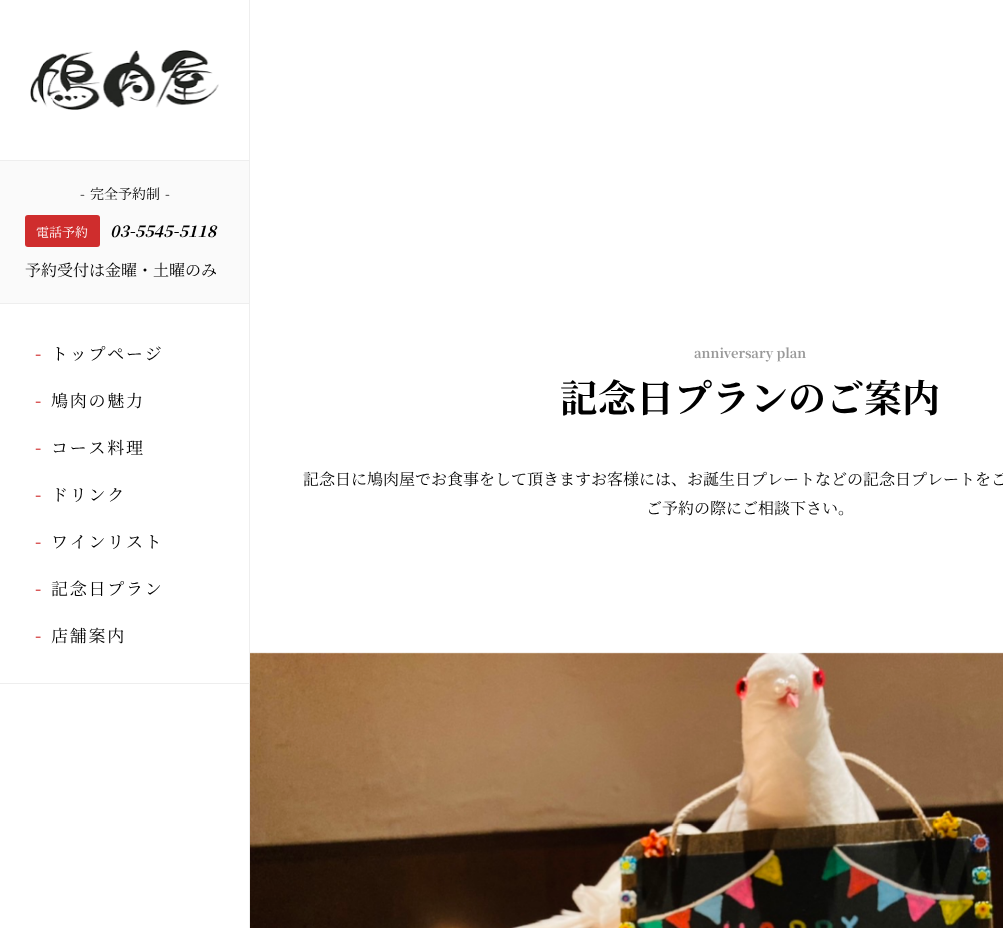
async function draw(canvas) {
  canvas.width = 1003
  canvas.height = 928
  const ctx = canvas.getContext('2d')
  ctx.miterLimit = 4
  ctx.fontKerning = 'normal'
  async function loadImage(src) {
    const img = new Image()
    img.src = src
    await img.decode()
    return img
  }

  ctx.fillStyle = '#fff'
  ctx.fillRect(0, 0, 1003, 928)
  ctx.fillStyle = '#eee'
  ctx.fillRect(249, 0, 1, 928)
  ctx.drawImage(await loadImage('image0.png'), 30, 50, 189, 60)
  ctx.fillStyle = '#fafafa'
  ctx.fillRect(0, 161, 249, 142)
  ctx.fillStyle = '#eee'
  ctx.fillRect(0, 160, 249, 1)
  ctx.font = '14px Noto Serif JP'
  ctx.fillStyle = '#000'
  ctx.fillText('-', 80, 199)
  ctx.fillText('完全予約制', 90, 199)
  ctx.fillText('-', 165, 199)
  ctx.fillStyle = '#cf2d2d'
  ctx.beginPath()
  ctx.roundRect(25, 215, 75, 32, 3)
  ctx.fill()
  ctx.font = '13px Noto Serif JP'
  ctx.fillStyle = '#fff'
  ctx.fillText('電話予約', 36, 237)
  ctx.font = 'italic bold 16px Noto Serif JP'
  ctx.fillStyle = '#000'
  ctx.fillText('03-5545-5118', 110, 237)
  ctx.font = '16px Noto Serif JP'
  ctx.fillText('予約受付は金曜・土曜のみ', 25, 276)
  ctx.fillStyle = '#eee'
  ctx.fillRect(0, 303, 249, 1)
  ctx.fillRect(0, 683, 249, 1)
  ctx.letterSpacing = '1.75px'
  ctx.font = 'bold 17px Noto Serif JP'
  ctx.fillStyle = '#cf2d2d'
  ctx.fillText('-', 35, 360)
  ctx.font = '17px Noto Serif JP'
  ctx.fillStyle = '#000'
  ctx.fillText('トップページ', 51, 360)
  ctx.font = 'bold 17px Noto Serif JP'
  ctx.fillStyle = '#cf2d2d'
  ctx.fillText('-', 35, 407)
  ctx.font = '17px Noto Serif JP'
  ctx.fillStyle = '#000'
  ctx.fillText('鳩肉の魅力', 51, 407)
  ctx.font = 'bold 17px Noto Serif JP'
  ctx.fillStyle = '#cf2d2d'
  ctx.fillText('-', 35, 454)
  ctx.font = '17px Noto Serif JP'
  ctx.fillStyle = '#000'
  ctx.fillText('コース料理', 51, 454)
  ctx.font = 'bold 17px Noto Serif JP'
  ctx.fillStyle = '#cf2d2d'
  ctx.fillText('-', 35, 501)
  ctx.font = '17px Noto Serif JP'
  ctx.fillStyle = '#000'
  ctx.fillText('ドリンク', 51, 501)
  ctx.font = 'bold 17px Noto Serif JP'
  ctx.fillStyle = '#cf2d2d'
  ctx.fillText('-', 35, 548)
  ctx.font = '17px Noto Serif JP'
  ctx.fillStyle = '#000'
  ctx.fillText('ワインリスト', 51, 548)
  ctx.font = 'bold 17px Noto Serif JP'
  ctx.fillStyle = '#cf2d2d'
  ctx.fillText('-', 35, 595)
  ctx.font = '17px Noto Serif JP'
  ctx.fillStyle = '#000'
  ctx.fillText('記念日プラン', 51, 595)
  ctx.font = 'bold 17px Noto Serif JP'
  ctx.fillStyle = '#cf2d2d'
  ctx.fillText('-', 35, 642)
  ctx.font = '17px Noto Serif JP'
  ctx.fillStyle = '#000'
  ctx.fillText('店舗案内', 51, 642)
  ctx.letterSpacing = '0px'
  ctx.font = 'bold 13px Noto Serif JP'
  ctx.fillStyle = '#999'
  ctx.fillText('anniversary plan', 694, 358)
  ctx.font = 'bold 38px Noto Serif JP'
  ctx.fillStyle = '#000'
  ctx.fillText('記念日プランのご案内', 560, 412)
  ctx.font = '16px Noto Serif JP'
  ctx.fillText('記念日に鳩肉屋でお食事をして頂きますお客様には、お誕生日プレートなどの記念日プレートをご', 303, 485)
  ctx.fillText('ご予約の際にご相談下さい。', 646, 514)
  ctx.drawImage(await loadImage('image1.png'), 250, 652, 753, 276)
}

draw(document.querySelector('canvas'))
